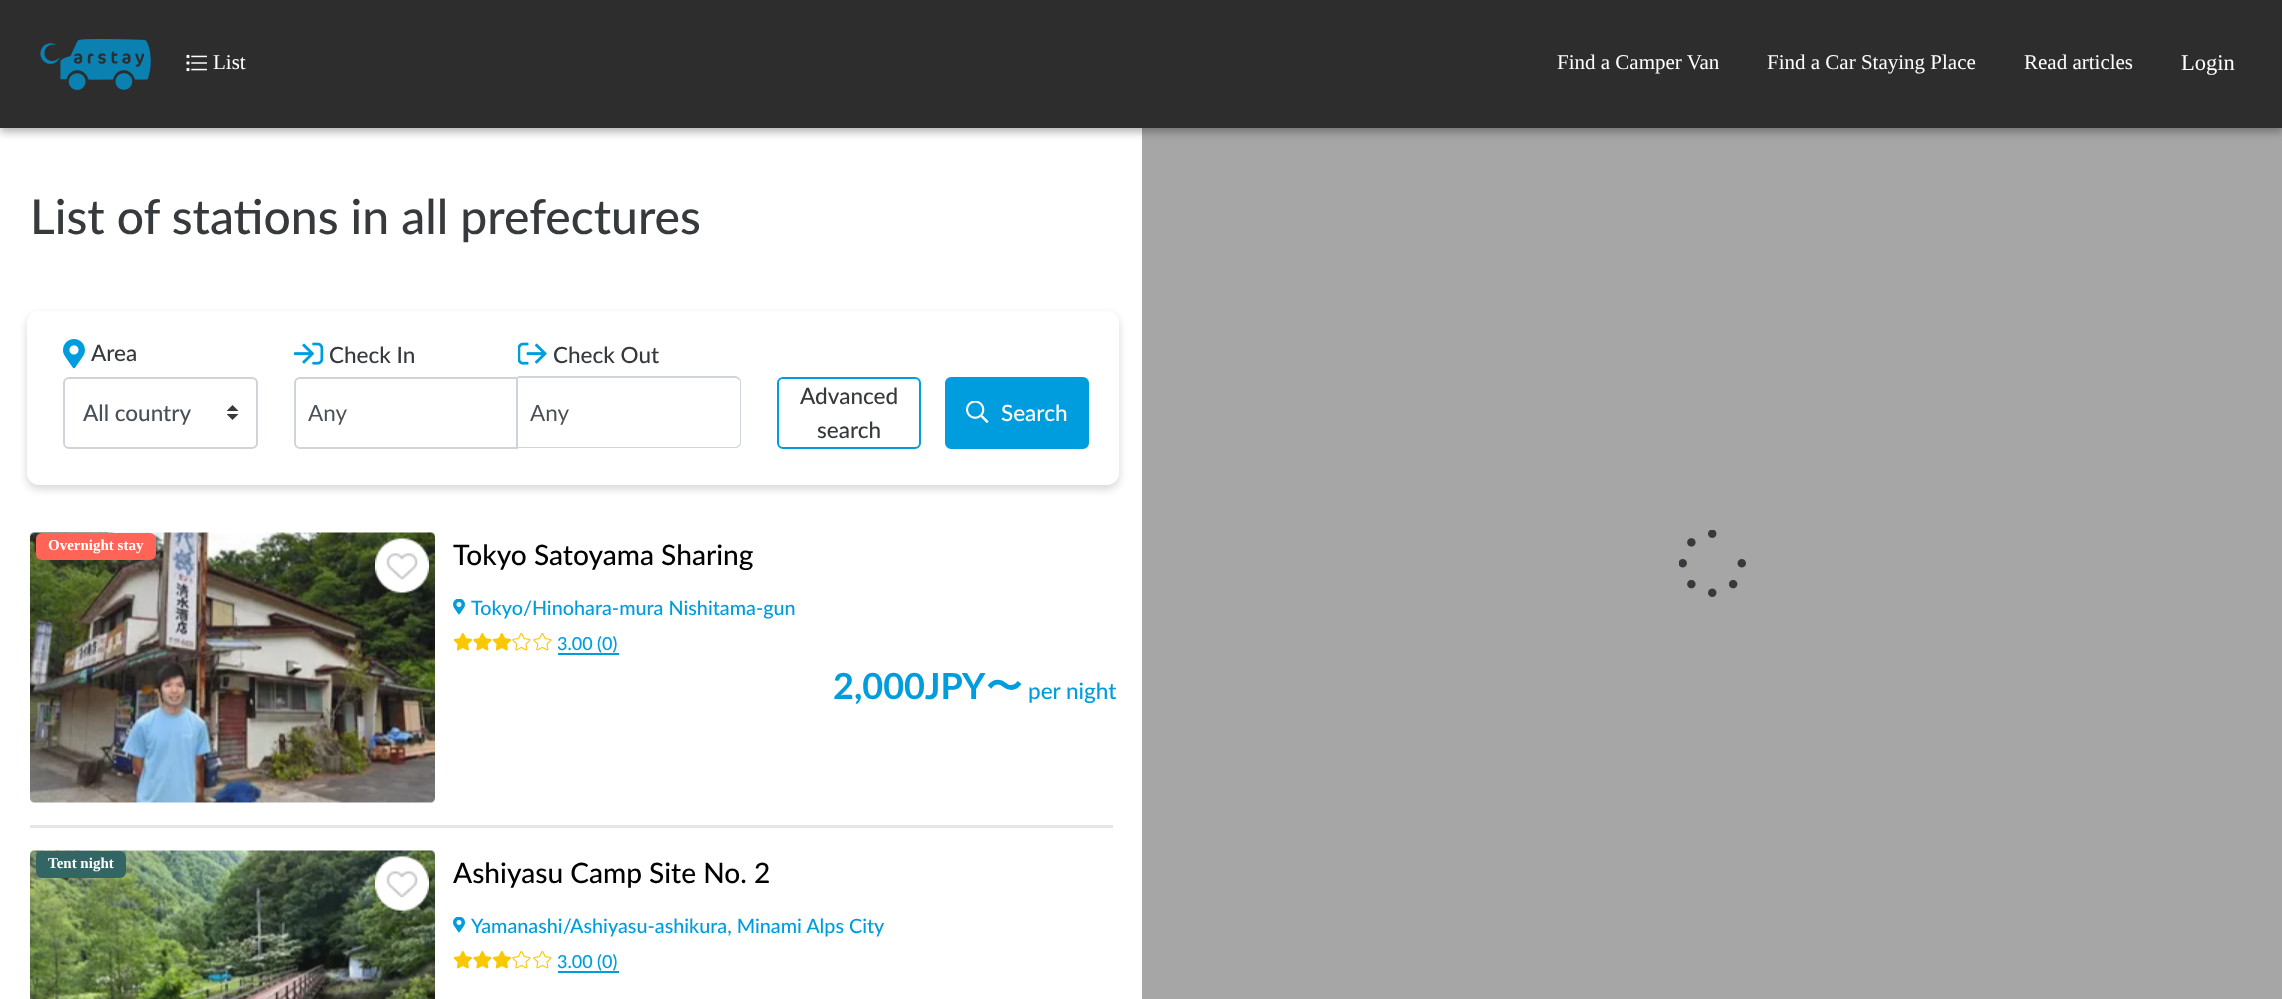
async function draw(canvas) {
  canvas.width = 2282
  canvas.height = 999
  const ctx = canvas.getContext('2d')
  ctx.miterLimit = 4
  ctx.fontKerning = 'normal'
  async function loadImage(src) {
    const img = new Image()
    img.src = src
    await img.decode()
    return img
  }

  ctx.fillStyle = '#fff'
  ctx.fillRect(0, 0, 2282, 999)
  ctx.fillStyle = '#a6a6a6'
  ctx.fillRect(1142, 128, 1140, 871)
  ctx.fillStyle = '#0000004d'
  ctx.filter = 'blur(4.5px)'
  ctx.beginPath()
  ctx.rect(0, 5, 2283, 127)
  ctx.fill()
  ctx.filter = 'none'
  ctx.fillStyle = '#2d2d2d'
  ctx.fillRect(0, 0, 2282, 128)
  ctx.drawImage(await loadImage('image0.png'), 40, 39, 111, 51)
  ctx.drawImage(await loadImage('image1.png'), 186, 54, 21, 18)
  ctx.font = '21px Liberation Serif'
  ctx.fillStyle = '#fff'
  ctx.fillText('List', 213, 69)
  ctx.fillText('Find a Camper Van', 1557, 69)
  ctx.fillText('Find a Car Staying Place', 1767, 69)
  ctx.fillText('Read articles', 2024, 69)
  ctx.font = '22.5px Liberation Serif'
  ctx.fillText('Login', 2181, 70)
  ctx.font = '500 48px Lato'
  ctx.fillStyle = '#373a3c'
  ctx.fillText('List of stations in all prefectures', 30, 234)
  ctx.save()
  ctx.beginPath()
  ctx.moveTo(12, 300)
  ctx.lineTo(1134, 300)
  ctx.lineTo(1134, 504)
  ctx.lineTo(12, 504)
  ctx.closePath()
  ctx.moveTo(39, 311)
  ctx.lineTo(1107, 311)
  ctx.bezierCurveTo(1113.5, 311, 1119, 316.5, 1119, 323)
  ctx.lineTo(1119, 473)
  ctx.bezierCurveTo(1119, 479.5, 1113.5, 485, 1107, 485)
  ctx.lineTo(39, 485)
  ctx.bezierCurveTo(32.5, 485, 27, 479.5, 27, 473)
  ctx.lineTo(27, 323)
  ctx.bezierCurveTo(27, 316.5, 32.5, 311, 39, 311)
  ctx.closePath()
  ctx.clip('evenodd')
  ctx.fillStyle = '#00000029'
  ctx.filter = 'blur(4.5px)'
  ctx.beginPath()
  ctx.roundRect(27, 315, 1092, 174, 12)
  ctx.fill()
  ctx.filter = 'none'
  ctx.restore()
  ctx.drawImage(await loadImage('image2.png'), 63, 339, 22, 30)
  ctx.font = '500 22.5px Lato'
  ctx.fillText('Area', 91, 361)
  ctx.drawImage(await loadImage('image3.png'), 227, 405, 12, 15)
  ctx.beginPath()
  ctx.roundRect(64, 378, 193, 70, 5)
  ctx.strokeStyle = '#ced4da'
  ctx.lineWidth = 2
  ctx.stroke()
  ctx.fillStyle = '#495057'
  ctx.fillText('All country', 83, 421)
  ctx.drawImage(await loadImage('image4.png'), 294, 342, 30, 23)
  ctx.fillStyle = '#373a3c'
  ctx.fillText('Check In', 329, 363)
  ctx.beginPath()
  ctx.roundRect(295, 378, 222, 70, [5, 0, 0, 5])
  ctx.stroke()
  ctx.font = '22.5px Lato'
  ctx.fillStyle = '#495057'
  ctx.fillText('Any', 308, 421)
  ctx.drawImage(await loadImage('image5.png'), 518, 342, 29, 23)
  ctx.font = '500 22.5px Lato'
  ctx.fillStyle = '#373a3c'
  ctx.fillText('Check Out', 553, 363)
  ctx.fillStyle = '#ced4da'
  ctx.beginPath()
  ctx.moveTo(518, 376)
  ctx.lineTo(735, 376)
  ctx.bezierCurveTo(738, 376, 741, 379, 741, 382)
  ctx.lineTo(741, 442)
  ctx.bezierCurveTo(741, 446, 738, 448, 735, 448)
  ctx.lineTo(518, 448)
  ctx.closePath()
  ctx.moveTo(518, 378)
  ctx.lineTo(735, 378)
  ctx.bezierCurveTo(737, 378, 740, 380, 740, 382)
  ctx.lineTo(740, 442)
  ctx.bezierCurveTo(740, 445, 737, 447, 735, 447)
  ctx.lineTo(518, 447)
  ctx.closePath()
  ctx.fill('evenodd')
  ctx.font = '22.5px Lato'
  ctx.fillStyle = '#495057'
  ctx.fillText('Any', 530, 421)
  ctx.beginPath()
  ctx.roundRect(778, 378, 142, 70, 5)
  ctx.strokeStyle = '#009dde'
  ctx.stroke()
  ctx.font = '500 22.5px Lato'
  ctx.fillStyle = '#373a3c'
  ctx.fillText('Advanced', 800, 404)
  ctx.fillText('search', 817, 438)
  ctx.fillStyle = '#009dde'
  ctx.beginPath()
  ctx.roundRect(946, 378, 142, 70, 5)
  ctx.fill()
  ctx.stroke()
  ctx.drawImage(await loadImage('image6.png'), 966, 401, 23, 22)
  ctx.fillStyle = '#fff'
  ctx.fillText('Search', 1001, 421)
  ctx.drawImage(await loadImage('image7.png'), 30, 532, 405, 271)
  ctx.fillStyle = '#ff6457'
  ctx.beginPath()
  ctx.roundRect(36, 533, 120, 27, 6)
  ctx.fill()
  ctx.font = 'bold 15px Liberation Serif'
  ctx.fillStyle = '#fff'
  ctx.fillText('Overnight stay', 48, 550)
  ctx.drawImage(await loadImage('image8.png'), 375, 538, 54, 55)
  ctx.font = '500 28.1px Lato'
  ctx.fillStyle = '#000'
  ctx.fillText('Tokyo Satoyama Sharing', 453, 565)
  ctx.drawImage(await loadImage('image9.png'), 453, 599, 12, 16)
  ctx.font = '500 19.75px Lato'
  ctx.fillStyle = '#009dde'
  ctx.fillText('Tokyo/Hinohara-mura Nishitama-gun', 471, 615)
  ctx.drawImage(await loadImage('image10.png'), 453, 633, 19, 18)
  ctx.drawImage(await loadImage('image11.png'), 473, 633, 19, 18)
  ctx.drawImage(await loadImage('image10.png'), 492, 633, 19, 18)
  ctx.drawImage(await loadImage('image12.png'), 512, 633, 19, 18)
  ctx.drawImage(await loadImage('image12.png'), 533, 633, 19, 18)
  ctx.font = '500 18px Lato'
  ctx.fillText('3.00 (0)', 557, 650)
  ctx.fillRect(558, 653, 61, 2)
  ctx.font = 'bold 36px Lato'
  ctx.fillText('2,000JPY', 833, 699)
  ctx.font = 'bold 36px WenQuanYi Zen Hei'
  ctx.fillText('〜', 986, 699)
  ctx.font = '500 22.5px Lato'
  ctx.fillText('per night', 1028, 699)
  ctx.fillStyle = '#e6e6e6'
  ctx.fillRect(30, 825, 1083, 3)
  ctx.drawImage(await loadImage('image13.png'), 30, 850, 405, 149)
  ctx.fillStyle = '#336565'
  ctx.beginPath()
  ctx.roundRect(36, 851, 90, 27, 6)
  ctx.fill()
  ctx.font = 'bold 15px Liberation Serif'
  ctx.fillStyle = '#fff'
  ctx.fillText('Tent night', 48, 868)
  ctx.drawImage(await loadImage('image14.png'), 375, 856, 54, 56)
  ctx.font = '500 28.1px Lato'
  ctx.fillStyle = '#000'
  ctx.fillText('Ashiyasu Camp Site No. 2', 453, 883)
  ctx.drawImage(await loadImage('image9.png'), 453, 917, 12, 16)
  ctx.font = '500 19.75px Lato'
  ctx.fillStyle = '#009dde'
  ctx.fillText('Yamanashi/', 471, 933)
  ctx.fillText('Ashiyasu-ashikura, Minami Alps City', 570, 933)
  ctx.drawImage(await loadImage('image10.png'), 453, 951, 19, 18)
  ctx.drawImage(await loadImage('image11.png'), 473, 951, 19, 18)
  ctx.drawImage(await loadImage('image10.png'), 492, 951, 19, 18)
  ctx.drawImage(await loadImage('image12.png'), 512, 951, 19, 18)
  ctx.drawImage(await loadImage('image12.png'), 533, 951, 19, 18)
  ctx.font = '500 18px Lato'
  ctx.fillText('3.00 (0)', 557, 968)
  ctx.fillRect(558, 971, 61, 2)
  ctx.drawImage(await loadImage('image15.png'), 1679, 530, 67, 67)
}

draw(document.querySelector('canvas'))
